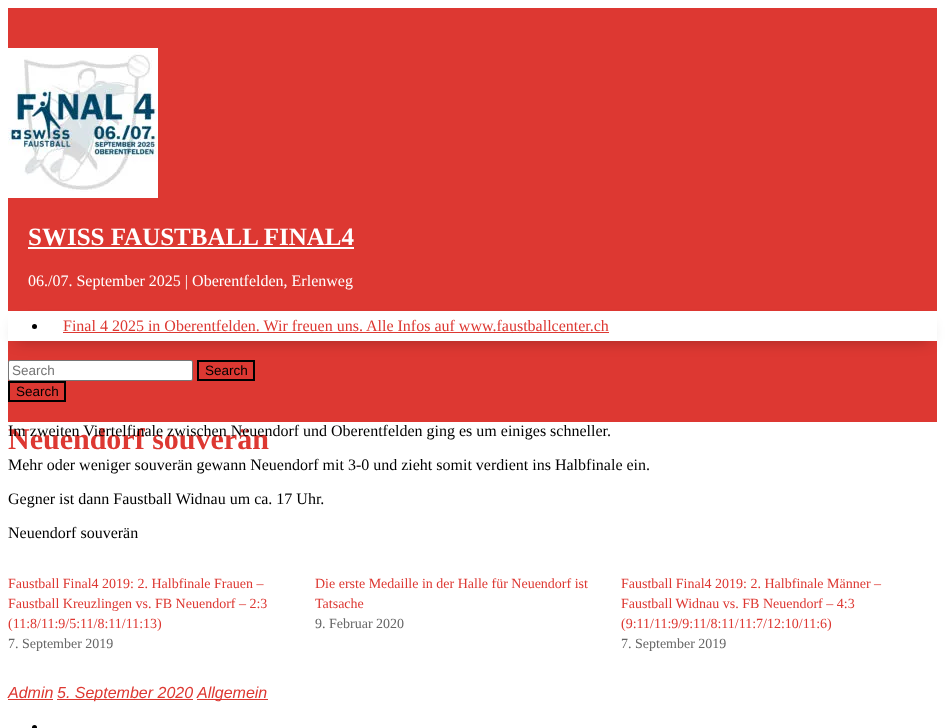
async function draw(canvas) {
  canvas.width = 945
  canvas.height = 728
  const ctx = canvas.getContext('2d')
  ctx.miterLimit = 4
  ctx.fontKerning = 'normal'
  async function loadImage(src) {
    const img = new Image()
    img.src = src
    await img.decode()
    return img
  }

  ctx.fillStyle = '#fff'
  ctx.fillRect(0, 0, 945, 728)
  ctx.fillStyle = '#dd3832'
  ctx.fillRect(8, 8, 929, 414)
  ctx.drawImage(await loadImage('image0.png'), 8, 48, 150, 150)
  ctx.font = 'bold 25px Liberation Serif'
  ctx.fillStyle = '#fff'
  ctx.fillText('SWISS FAUSTBALL FINAL4', 28, 245)
  ctx.fillRect(28, 247, 326, 2)
  ctx.font = '16px Liberation Serif'
  ctx.fillText('06./07. September 2025 | Oberentfelden, Erlenweg', 28, 286)
  ctx.fillRect(8, 311, 929, 30)
  ctx.save()
  ctx.beginPath()
  ctx.moveTo(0, 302)
  ctx.lineTo(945, 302)
  ctx.lineTo(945, 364)
  ctx.lineTo(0, 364)
  ctx.closePath()
  ctx.moveTo(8, 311)
  ctx.lineTo(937, 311)
  ctx.lineTo(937, 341)
  ctx.lineTo(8, 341)
  ctx.closePath()
  ctx.clip('evenodd')
  ctx.fillStyle = '#0000004d'
  ctx.filter = 'blur(7.5px)'
  ctx.beginPath()
  ctx.rect(16, 326, 913, 14)
  ctx.fill()
  ctx.filter = 'none'
  ctx.restore()
  ctx.fillStyle = '#000'
  ctx.beginPath()
  ctx.arc(34.5, 326.5, 2.5, 0, 2 * Math.PI)
  ctx.fill()
  ctx.fillStyle = '#dd3832'
  ctx.fillText('Final 4 2025 in Oberentfelden. Wir freuen uns. Alle Infos auf www.faustballcenter.ch', 63, 331)
  ctx.fillRect(63, 332, 546, 1)
  ctx.fillStyle = '#fff'
  ctx.beginPath()
  ctx.roundRect(8.5, 360.5, 184, 20, 1.5)
  ctx.fill()
  ctx.strokeStyle = '#767676'
  ctx.stroke()
  ctx.font = '13.5px Liberation Sans'
  ctx.fillStyle = '#757575'
  ctx.fillText('Search', 12, 375)
  ctx.strokeStyle = '#000'
  ctx.lineWidth = 2
  ctx.strokeRect(198, 361, 56, 19)
  ctx.fillStyle = '#000'
  ctx.fillText('Search', 205, 375)
  ctx.strokeRect(9, 382, 56, 19)
  ctx.fillText('Search', 16, 396)
  ctx.font = 'bold 30px Liberation Serif'
  ctx.fillStyle = '#dd3832'
  ctx.fillText('Neuendorf souverän', 8, 449)
  ctx.font = '16px Liberation Serif'
  ctx.fillStyle = '#000'
  ctx.fillText('Im zweiten Viertelfinale zwischen Neuendorf und Oberentfelden ging es um einiges schneller.', 8, 436)
  ctx.fillText('Mehr oder weniger souverän gewann Neuendorf mit 3-0 und zieht somit verdient ins Halbfinale ein.', 8, 470)
  ctx.fillText('Gegner ist dann Faustball Widnau um ca. 17 Uhr.', 8, 504)
  ctx.fillText('Neuendorf souverän', 8, 538)
  ctx.font = '14px Liberation Serif'
  ctx.fillStyle = '#dd3832'
  ctx.fillText('Faustball Final4 2019: 2. Halbfinale Frauen –', 8, 588)
  ctx.fillText('Faustball Kreuzlingen vs. FB Neuendorf – 2:3', 8, 608)
  ctx.fillText('(11:8/11:9/5:11/8:11/11:13)', 8, 628)
  ctx.fillStyle = '#666'
  ctx.fillText('7. September 2019', 8, 648)
  ctx.fillStyle = '#dd3832'
  ctx.fillText('Die erste Medaille in der Halle für Neuendorf ist', 315, 588)
  ctx.fillText('Tatsache', 315, 608)
  ctx.fillStyle = '#666'
  ctx.fillText('9. Februar 2020', 315, 628)
  ctx.fillStyle = '#dd3832'
  ctx.fillText('Faustball Final4 2019: 2. Halbfinale Männer –', 621, 588)
  ctx.fillText('Faustball Widnau vs. FB Neuendorf – 4:3', 621, 608)
  ctx.fillText('(9:11/11:9/9:11/8:11/11:7/12:10/11:6)', 621, 628)
  ctx.fillStyle = '#666'
  ctx.fillText('7. September 2019', 621, 648)
  ctx.font = 'italic 16px Liberation Sans'
  ctx.fillStyle = '#dd3832'
  ctx.fillText('Admin', 8, 698)
  ctx.fillRect(8, 699, 45, 1)
  ctx.fillRect(57, 699, 136, 1)
  ctx.fillText('5. September 2020', 57, 698)
  ctx.fillRect(197, 699, 71, 1)
  ctx.fillText('Allgemein', 197, 698)
  ctx.fillStyle = '#000'
  ctx.beginPath()
  ctx.arc(34.5, 727.5, 2.5, 0, 2 * Math.PI)
  ctx.fill()
}

draw(document.querySelector('canvas'))
